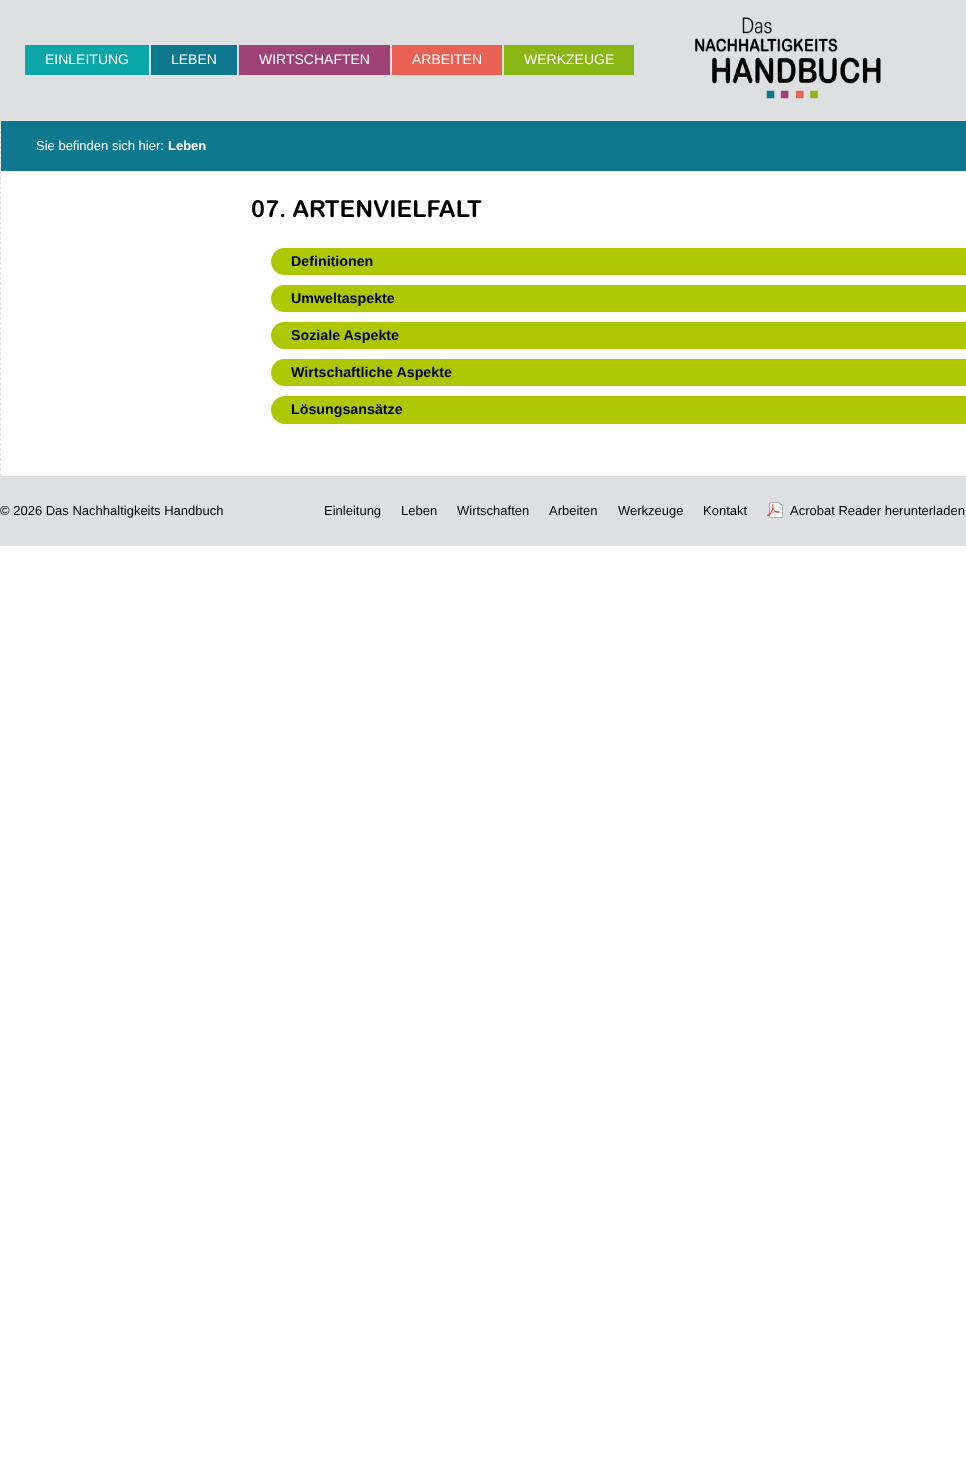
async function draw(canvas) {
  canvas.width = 966
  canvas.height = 1484
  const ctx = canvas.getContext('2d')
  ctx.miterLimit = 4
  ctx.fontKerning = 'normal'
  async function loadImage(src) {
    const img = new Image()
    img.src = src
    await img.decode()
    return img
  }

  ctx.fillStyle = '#fff'
  ctx.fillRect(0, 0, 966, 1484)
  ctx.fillStyle = '#dedfe0'
  ctx.fillRect(0, 0, 966, 121)
  ctx.fillStyle = '#0ba6a7'
  ctx.fillRect(25, 45, 124, 30)
  ctx.font = '14px Liberation Sans'
  ctx.fillStyle = '#fff'
  ctx.fillText('EINLEITUNG', 45, 64)
  ctx.fillStyle = '#0e798e'
  ctx.fillRect(151, 45, 86, 30)
  ctx.fillStyle = '#fff'
  ctx.fillText('LEBEN', 171, 64)
  ctx.fillStyle = '#9e4275'
  ctx.fillRect(239, 45, 151, 30)
  ctx.fillStyle = '#fff'
  ctx.fillText('WIRTSCHAFTEN', 259, 64)
  ctx.fillStyle = '#e96155'
  ctx.fillRect(392, 45, 110, 30)
  ctx.fillStyle = '#fff'
  ctx.fillText('ARBEITEN', 412, 64)
  ctx.fillStyle = '#8bb714'
  ctx.fillRect(504, 45, 130, 30)
  ctx.fillStyle = '#fff'
  ctx.fillText('WERKZEUGE', 524, 64)
  ctx.drawImage(await loadImage('image0.png'), 695, 17, 186, 82)
  ctx.beginPath()
  ctx.moveTo(0.5, 121)
  ctx.lineTo(0.5, 476)
  ctx.strokeStyle = '#dedfe0'
  ctx.setLineDash([3, 2.03])
  ctx.stroke()
  ctx.fillStyle = '#0e798e'
  ctx.fillRect(1, 121, 965, 50)
  ctx.font = '13px Liberation Sans'
  ctx.fillStyle = '#fff'
  ctx.fillText('Sie befinden sich hier:', 36, 150)
  ctx.font = 'bold 13px Liberation Sans'
  ctx.fillText('Leben', 168, 150)
  ctx.font = 'bold 23.5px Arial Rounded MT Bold'
  ctx.fillStyle = '#000'
  ctx.fillText('07. ARTENVIELFALT', 251, 217)
  ctx.fillStyle = '#aec700'
  ctx.beginPath()
  ctx.moveTo(284.5, 248)
  ctx.lineTo(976, 248)
  ctx.lineTo(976, 275)
  ctx.lineTo(284.5, 275)
  ctx.bezierCurveTo(277, 275, 271, 269, 271, 261.5)
  ctx.bezierCurveTo(271, 254, 277, 248, 284.5, 248)
  ctx.closePath()
  ctx.fill()
  ctx.font = 'bold 14.25px Liberation Sans'
  ctx.fillStyle = '#000'
  ctx.fillText('Definitionen', 291, 266)
  ctx.fillStyle = '#aec700'
  ctx.beginPath()
  ctx.moveTo(284.5, 285)
  ctx.lineTo(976, 285)
  ctx.lineTo(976, 312)
  ctx.lineTo(284.5, 312)
  ctx.bezierCurveTo(277, 312, 271, 306, 271, 298.5)
  ctx.bezierCurveTo(271, 291, 277, 285, 284.5, 285)
  ctx.closePath()
  ctx.fill()
  ctx.fillStyle = '#000'
  ctx.fillText('Umweltaspekte', 291, 303)
  ctx.fillStyle = '#aec700'
  ctx.beginPath()
  ctx.moveTo(284.5, 322)
  ctx.lineTo(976, 322)
  ctx.lineTo(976, 349)
  ctx.lineTo(284.5, 349)
  ctx.bezierCurveTo(277, 349, 271, 343, 271, 335.5)
  ctx.bezierCurveTo(271, 328, 277, 322, 284.5, 322)
  ctx.closePath()
  ctx.fill()
  ctx.fillStyle = '#000'
  ctx.fillText('Soziale Aspekte', 291, 340)
  ctx.fillStyle = '#aec700'
  ctx.beginPath()
  ctx.moveTo(284.5, 359)
  ctx.lineTo(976, 359)
  ctx.lineTo(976, 386)
  ctx.lineTo(284.5, 386)
  ctx.bezierCurveTo(277, 386, 271, 380, 271, 372.5)
  ctx.bezierCurveTo(271, 365, 277, 359, 284.5, 359)
  ctx.closePath()
  ctx.fill()
  ctx.fillStyle = '#000'
  ctx.fillText('Wirtschaftliche Aspekte', 291, 377)
  ctx.fillStyle = '#aec700'
  ctx.beginPath()
  ctx.moveTo(285, 396)
  ctx.lineTo(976, 396)
  ctx.lineTo(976, 424)
  ctx.lineTo(285, 424)
  ctx.bezierCurveTo(277.5, 424, 271, 417.5, 271, 410)
  ctx.bezierCurveTo(271, 402.5, 277.5, 396, 285, 396)
  ctx.closePath()
  ctx.fill()
  ctx.fillStyle = '#000'
  ctx.fillText('Lösungsansätze', 291, 414)
  ctx.fillStyle = '#dedfe0'
  ctx.fillRect(0, 476, 966, 70)
  ctx.font = '13px Liberation Sans'
  ctx.fillStyle = '#000'
  ctx.fillText('© 2026 Das Nachhaltigkeits Handbuch', 0, 515)
  ctx.fillText('Einleitung', 324, 515)
  ctx.fillText('Leben', 401, 515)
  ctx.fillText('Wirtschaften', 457, 515)
  ctx.fillText('Arbeiten', 549, 515)
  ctx.fillText('Werkzeuge', 618, 515)
  ctx.fillText('Kontakt', 703, 515)
  ctx.drawImage(await loadImage('image1.png'), 767, 502, 16, 16)
  ctx.fillText('Acrobat Reader herunterladen', 790, 515)
}

draw(document.querySelector('canvas'))
